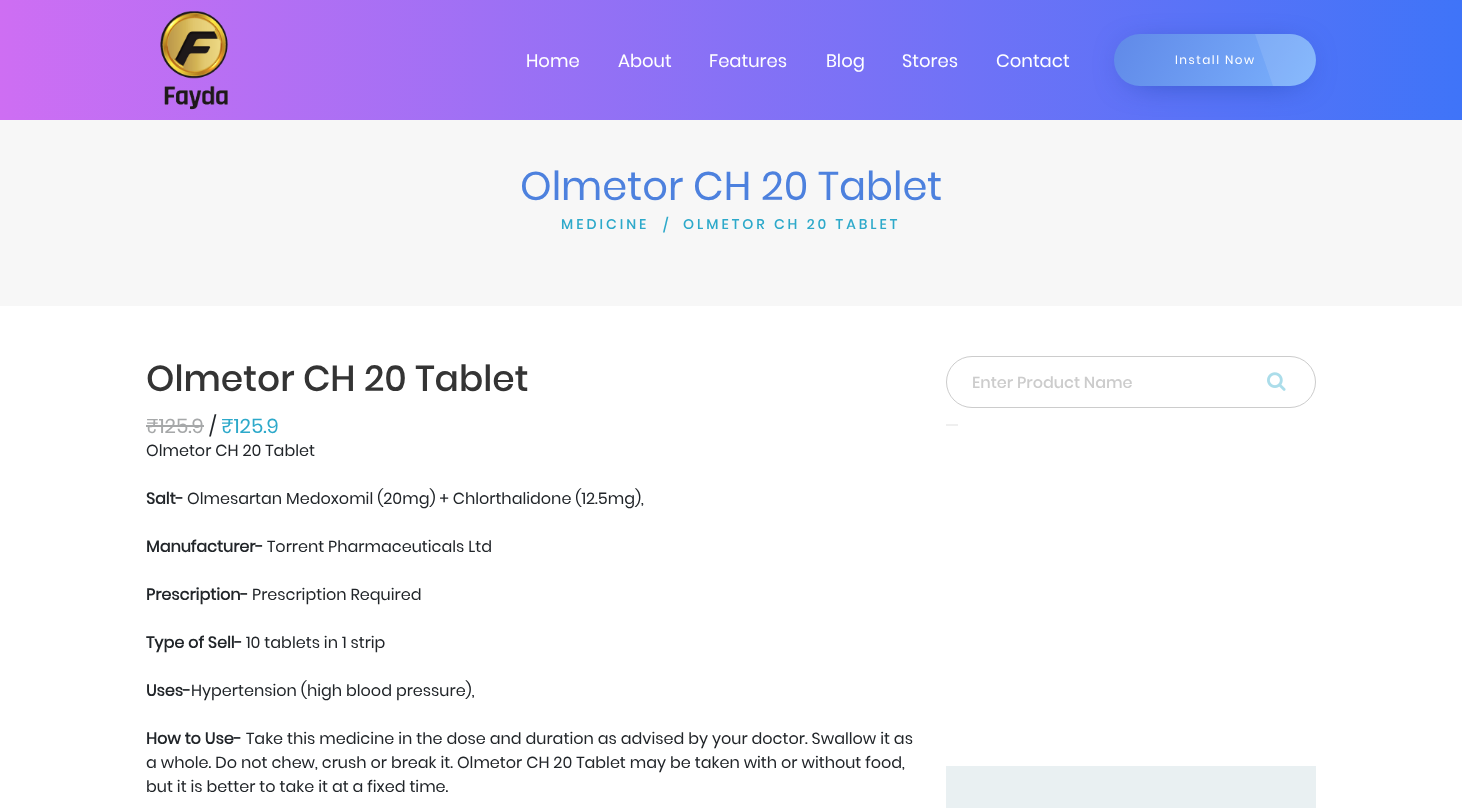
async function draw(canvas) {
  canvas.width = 1462
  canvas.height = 808
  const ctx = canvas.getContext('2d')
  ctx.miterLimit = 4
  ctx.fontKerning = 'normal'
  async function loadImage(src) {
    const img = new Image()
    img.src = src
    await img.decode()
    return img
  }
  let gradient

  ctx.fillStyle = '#fff'
  ctx.fillRect(0, 0, 1462, 808)
  gradient = ctx.createLinearGradient(0, 60, 1462, 60)
  gradient.addColorStop(0, '#ce6ef3')
  gradient.addColorStop(1, '#3f74f8')
  ctx.fillStyle = gradient
  ctx.fillRect(0, 0, 1462, 120)
  ctx.drawImage(await loadImage('image0.png'), 160, 11, 68, 99)
  ctx.font = '18px Poppins'
  ctx.fillStyle = '#fff'
  ctx.fillText('Home', 526, 67)
  ctx.fillText('About', 618, 67)
  ctx.fillText('Features', 709, 67)
  ctx.fillText('Blog', 826, 67)
  ctx.fillText('Stores', 902, 67)
  ctx.fillText('Contact', 996, 67)
  ctx.fillStyle = '#f7f7f7'
  ctx.fillRect(0, 120, 1462, 186)
  ctx.fillStyle = '#11399c'
  ctx.filter = 'blur(17.5px)'
  ctx.beginPath()
  ctx.roundRect(1130, 55, 170, 20, 10)
  ctx.fill()
  ctx.filter = 'none'
  gradient = ctx.createLinearGradient(1128, 10, 1302, 110)
  gradient.addColorStop(0, '#6089e8')
  gradient.addColorStop(1, '#7bb2fd')
  ctx.fillStyle = gradient
  ctx.beginPath()
  ctx.roundRect(1114, 34, 202, 52, 26)
  ctx.fill()
  ctx.letterSpacing = '1.5px'
  ctx.font = '12px Poppins'
  ctx.fillStyle = '#fff'
  ctx.fillText('Install Now', 1175, 64)
  ctx.fillStyle = '#ffffff1a'
  ctx.beginPath()
  ctx.moveTo(1255, 34)
  ctx.lineTo(1273, 86)
  ctx.bezierCurveTo(1282, 86, 1292, 87, 1300, 84)
  ctx.bezierCurveTo(1326, 73, 1318, 34, 1290, 34)
  ctx.closePath()
  ctx.fill()
  ctx.letterSpacing = '0px'
  ctx.font = '40px Poppins'
  ctx.fillStyle = '#4d81de'
  ctx.fillText('Olmetor CH 20 Tablet', 520, 200)
  ctx.letterSpacing = '3px'
  ctx.font = '500 14px Poppins'
  ctx.fillStyle = '#2da9ca'
  ctx.fillText('MEDICINE', 561, 229)
  ctx.fillText('/', 663, 230)
  ctx.fillText('OLMETOR CH 20 TABLET', 683, 229)
  ctx.letterSpacing = '0px'
  ctx.font = '500 36px Poppins'
  ctx.fillStyle = '#343434'
  ctx.fillText('Olmetor CH 20 Tablet', 146, 391)
  ctx.font = '20px Poppins'
  ctx.fillStyle = '#a6a8a9'
  ctx.fillText('₹125.9', 146, 433)
  ctx.fillRect(146, 425, 58, 2)
  ctx.fillStyle = '#212529'
  ctx.fillText('/', 209, 433)
  ctx.fillStyle = '#2da9ca'
  ctx.fillText('₹125.9', 221, 433)
  ctx.font = '16px Poppins'
  ctx.fillStyle = '#212529'
  ctx.fillText('Olmetor CH 20 Tablet', 146, 456)
  ctx.font = 'bold 16px Poppins'
  ctx.fillText('Salt-', 146, 504)
  ctx.font = '16px Poppins'
  ctx.fillText('Olmesartan Medoxomil (20mg) + Chlorthalidone (12.5mg),', 187, 504)
  ctx.font = 'bold 16px Poppins'
  ctx.fillText('Manufacturer-', 146, 552)
  ctx.font = '16px Poppins'
  ctx.fillText('Torrent Pharmaceuticals Ltd', 267, 552)
  ctx.font = 'bold 16px Poppins'
  ctx.fillText('Prescription-', 146, 600)
  ctx.font = '16px Poppins'
  ctx.fillText('Prescription Required', 252, 600)
  ctx.font = 'bold 16px Poppins'
  ctx.fillText('Type of Sell-', 146, 648)
  ctx.font = '16px Poppins'
  ctx.fillText('10 tablets in 1 strip', 246, 648)
  ctx.font = 'bold 16px Poppins'
  ctx.fillText('Uses-', 146, 696)
  ctx.font = '16px Poppins'
  ctx.fillText('Hypertension (high blood pressure),', 191, 696)
  ctx.font = 'bold 16px Poppins'
  ctx.fillText('How to Use-', 146, 744)
  ctx.font = '16px Poppins'
  ctx.fillText('Take this medicine in the dose and duration as advised by your doctor. Swallow it as', 246, 744)
  ctx.fillText('a whole. Do not chew, crush or break it. Olmetor CH 20 Tablet may be taken with or without food,', 146, 768)
  ctx.fillText('but it is better to take it at a fixed time.', 146, 792)
  ctx.fillStyle = '#efefef'
  ctx.fillRect(946, 424, 12, 2)
  ctx.beginPath()
  ctx.roundRect(946.5, 356.5, 369, 51, 25.5)
  ctx.strokeStyle = '#ccc'
  ctx.stroke()
  ctx.drawImage(await loadImage('image1.png'), 1267, 372, 19, 19)
  ctx.font = '500 16px Poppins'
  ctx.fillStyle = '#ccc'
  ctx.fillText('Enter Product Name', 972, 388)
  ctx.fillStyle = '#e9f0f2'
  ctx.fillRect(946, 766, 370, 42)
}

draw(document.querySelector('canvas'))
